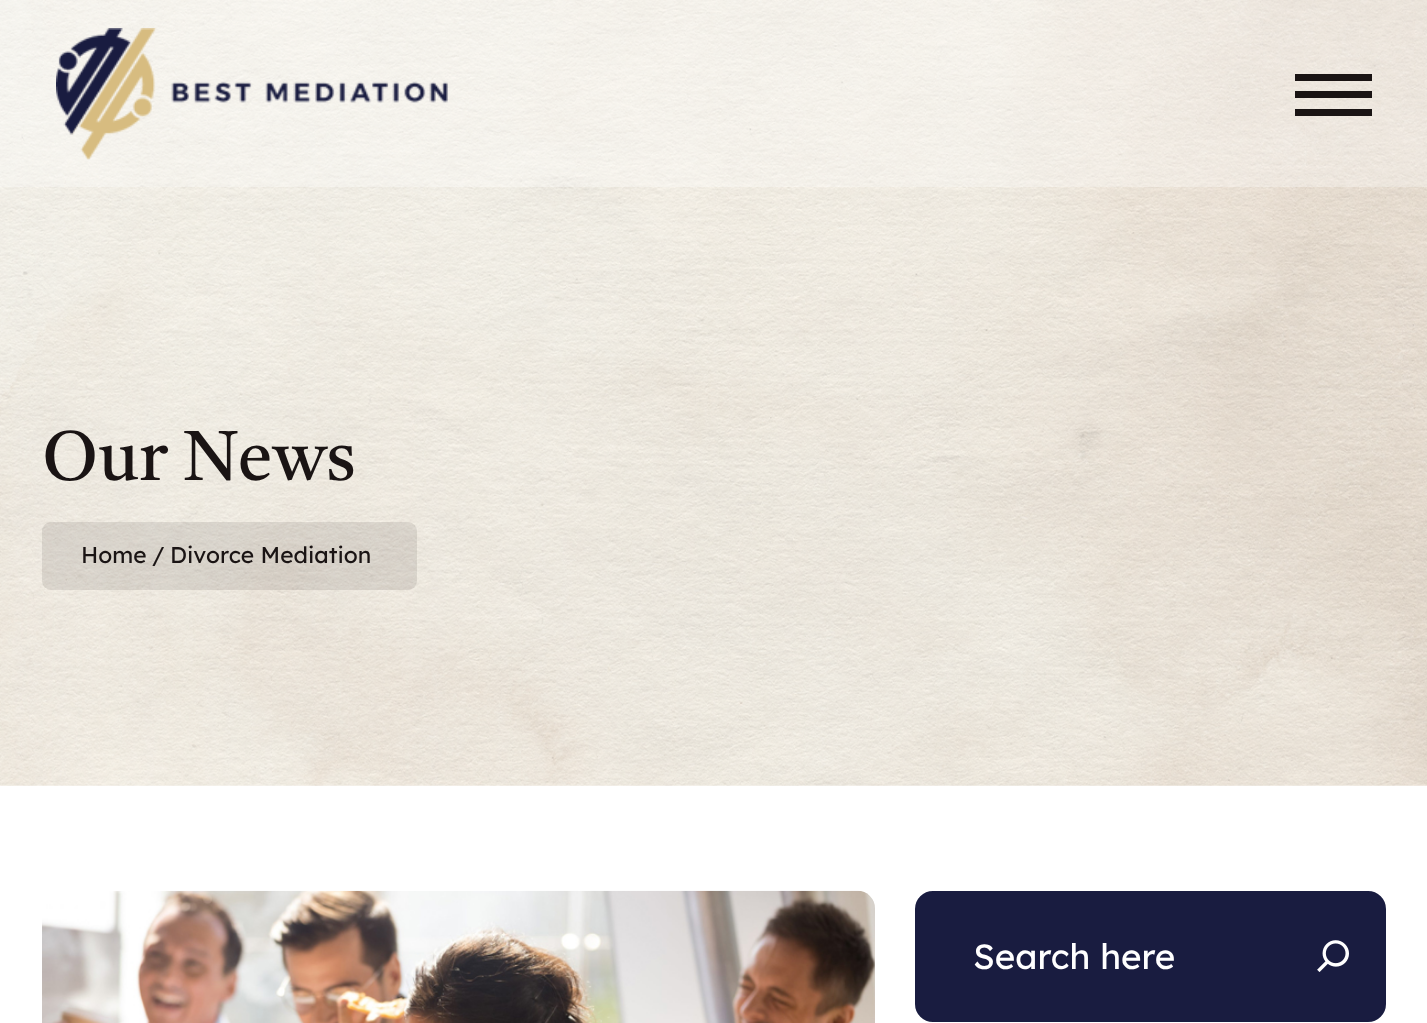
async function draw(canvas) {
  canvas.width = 1427
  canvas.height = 1023
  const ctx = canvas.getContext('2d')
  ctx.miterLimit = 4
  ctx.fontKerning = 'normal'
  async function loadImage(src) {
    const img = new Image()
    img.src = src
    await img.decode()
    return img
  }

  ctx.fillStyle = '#fff'
  ctx.fillRect(0, 0, 1427, 1023)
  ctx.drawImage(await loadImage('image1.png'), 0, 0, 1427, 786)
  ctx.fillStyle = '#ffffff4d'
  ctx.fillRect(0, 0, 1427, 187)
  ctx.drawImage(await loadImage('image0.png'), 56, 28, 392, 132)
  ctx.fillStyle = '#1a1414'
  ctx.fillRect(1295, 74, 77, 7)
  ctx.fillRect(1295, 91, 77, 7)
  ctx.fillRect(1295, 109, 77, 7)
  ctx.font = '70px Castoro'
  ctx.fillText('Our News', 42, 480)
  ctx.fillStyle = '#1a14141a'
  ctx.beginPath()
  ctx.roundRect(42, 522, 375, 68, 9)
  ctx.fill()
  ctx.font = '22.75px Lexend'
  ctx.fillStyle = '#1a1414'
  ctx.fillText('Home', 81, 563)
  ctx.fillText('/', 152, 563)
  ctx.fillText('Divorce Mediation', 170, 563)
  ctx.drawImage(await loadImage('image2.png'), 42, 890, 833, 133)
  ctx.fillStyle = '#191c40'
  ctx.beginPath()
  ctx.roundRect(916, 892, 469, 129, 17)
  ctx.fill()
  ctx.strokeStyle = '#191c40'
  ctx.lineWidth = 2
  ctx.stroke()
  ctx.font = '35px Lexend'
  ctx.fillStyle = '#fff'
  ctx.fillText('Search here', 973, 969)
  ctx.drawImage(await loadImage('image3.png'), 1317, 940, 32, 32)
}

draw(document.querySelector('canvas'))
